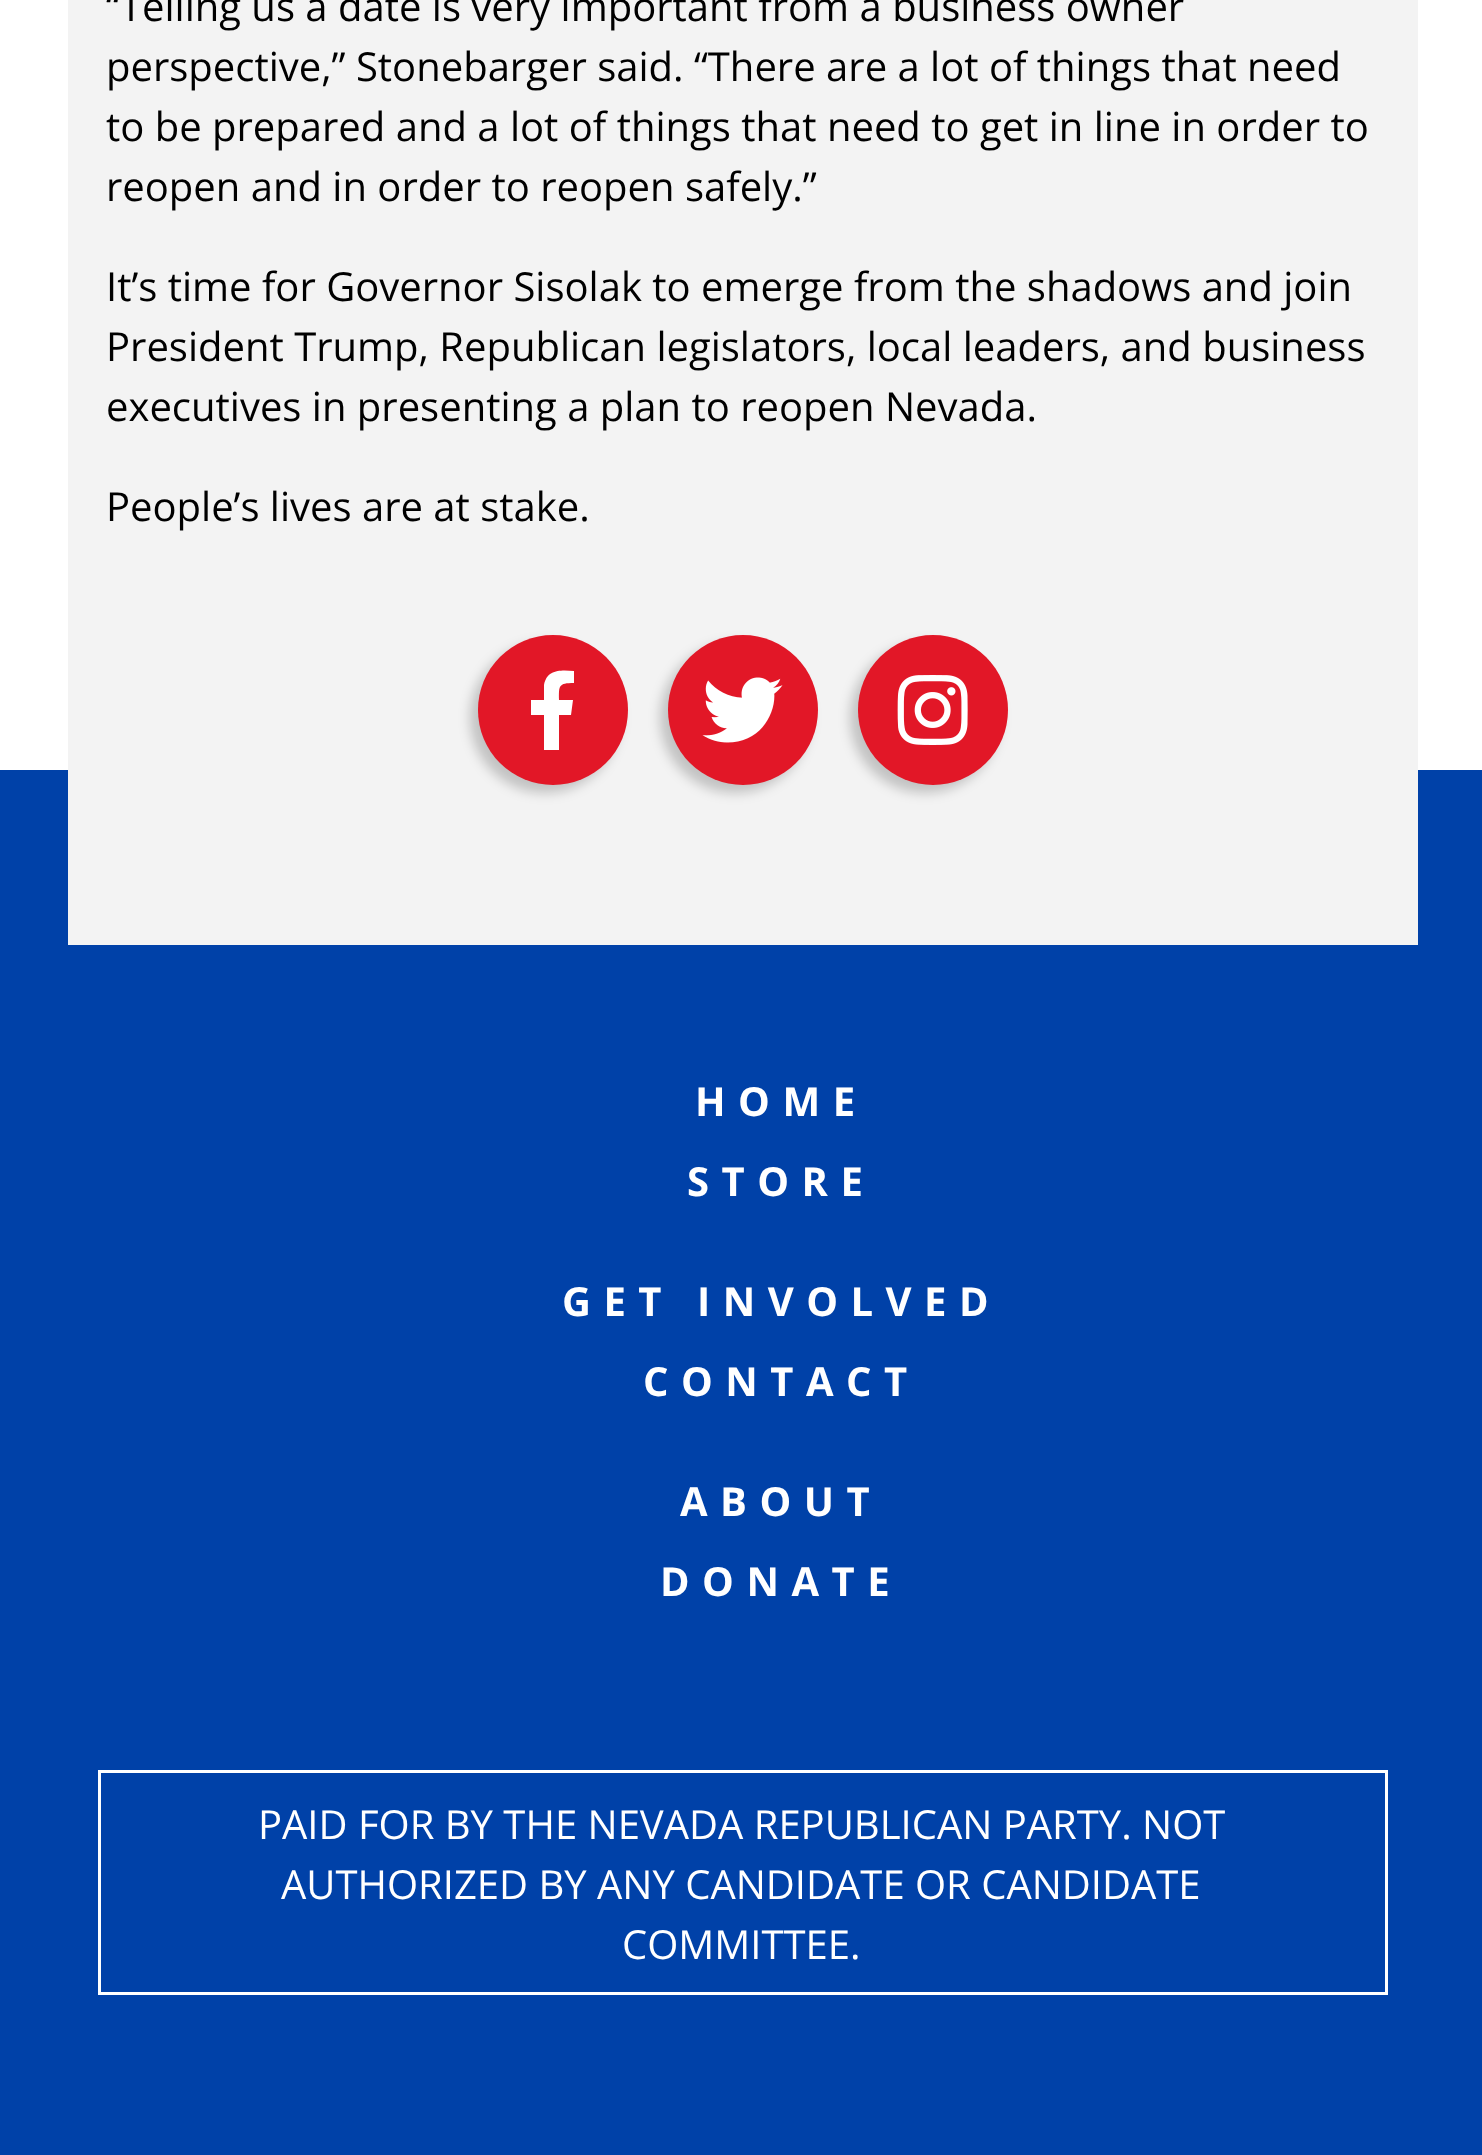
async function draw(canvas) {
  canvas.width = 1482
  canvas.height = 2155
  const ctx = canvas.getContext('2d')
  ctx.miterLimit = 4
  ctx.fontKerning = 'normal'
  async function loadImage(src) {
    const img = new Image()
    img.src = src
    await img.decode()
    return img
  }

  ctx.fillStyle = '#fff'
  ctx.fillRect(0, 0, 1482, 2155)
  ctx.fillStyle = '#0041a8'
  ctx.fillRect(0, 770, 1482, 1385)
  ctx.fillStyle = '#f3f3f3'
  ctx.fillRect(68, 0, 1350, 945)
  ctx.font = '40px Open Sans'
  ctx.fillStyle = '#000'
  ctx.fillText('“Telling us a date is very important from a business owner', 106, 21)
  ctx.fillText('perspective,” Stonebarger said. “There are a lot of things that need', 106, 81)
  ctx.fillText('to be prepared and a lot of things that need to get in line in order to', 106, 141)
  ctx.fillText('reopen and in order to reopen safely.”', 106, 201)
  ctx.fillText('It’s time for Governor Sisolak to emerge from the shadows and join', 106, 301)
  ctx.fillText('President Trump, Republican legislators, local leaders, and business', 106, 361)
  ctx.fillText('executives in presenting a plan to reopen Nevada.', 106, 421)
  ctx.fillText('People’s lives are at stake.', 106, 521)
  ctx.fillStyle = '#00000033'
  ctx.filter = 'blur(6px)'
  ctx.beginPath()
  ctx.roundRect(470, 643, 150, 150, 75)
  ctx.fill()
  ctx.filter = 'none'
  ctx.fillStyle = '#e21727'
  ctx.beginPath()
  ctx.arc(553, 710, 75, 0, 2 * Math.PI)
  ctx.fill()
  ctx.fillStyle = '#fff'
  ctx.beginPath()
  ctx.moveTo(571, 715)
  ctx.lineTo(559, 715)
  ctx.lineTo(559, 750)
  ctx.lineTo(544, 750)
  ctx.lineTo(544, 715)
  ctx.lineTo(531, 715)
  ctx.lineTo(531, 700)
  ctx.lineTo(544, 700)
  ctx.lineTo(544, 685)
  ctx.bezierCurveTo(547, 669, 561, 670, 574, 671)
  ctx.lineTo(574, 683)
  ctx.bezierCurveTo(558, 683, 559, 686, 559, 700)
  ctx.lineTo(573, 700)
  ctx.closePath()
  ctx.fill()
  ctx.fillStyle = '#00000033'
  ctx.filter = 'blur(6px)'
  ctx.beginPath()
  ctx.roundRect(660, 643, 150, 150, 75)
  ctx.fill()
  ctx.filter = 'none'
  ctx.fillStyle = '#e21727'
  ctx.beginPath()
  ctx.arc(743, 710, 75, 0, 2 * Math.PI)
  ctx.fill()
  ctx.drawImage(await loadImage('image0.png'), 702, 677, 81, 66)
  ctx.fillStyle = '#00000033'
  ctx.filter = 'blur(6px)'
  ctx.beginPath()
  ctx.roundRect(850, 643, 150, 150, 75)
  ctx.fill()
  ctx.filter = 'none'
  ctx.fillStyle = '#e21727'
  ctx.beginPath()
  ctx.arc(933, 710, 75, 0, 2 * Math.PI)
  ctx.fill()
  ctx.drawImage(await loadImage('image1.png'), 897, 675, 71, 70)
  ctx.letterSpacing = '12.5px'
  ctx.font = 'bold 40px Open Sans'
  ctx.fillStyle = '#fff'
  ctx.fillText('HOME', 695, 1116)
  ctx.fillText('STORE', 687, 1196)
  ctx.fillText('GET INVOLVED', 562, 1316)
  ctx.fillText('CONTACT', 643, 1396)
  ctx.fillText('ABOUT', 680, 1516)
  ctx.fillText('DONATE', 660, 1596)
  ctx.strokeStyle = '#fff'
  ctx.lineWidth = 3
  ctx.strokeRect(99.5, 1771.5, 1287, 222)
  ctx.letterSpacing = '0px'
  ctx.font = '40px Open Sans'
  ctx.fillText('PAID FOR BY THE NEVADA REPUBLICAN PARTY. NOT', 258, 1839)
  ctx.fillText('AUTHORIZED BY ANY CANDIDATE OR CANDIDATE', 281, 1899)
  ctx.fillText('COMMITTEE.', 622, 1959)
}

draw(document.querySelector('canvas'))
